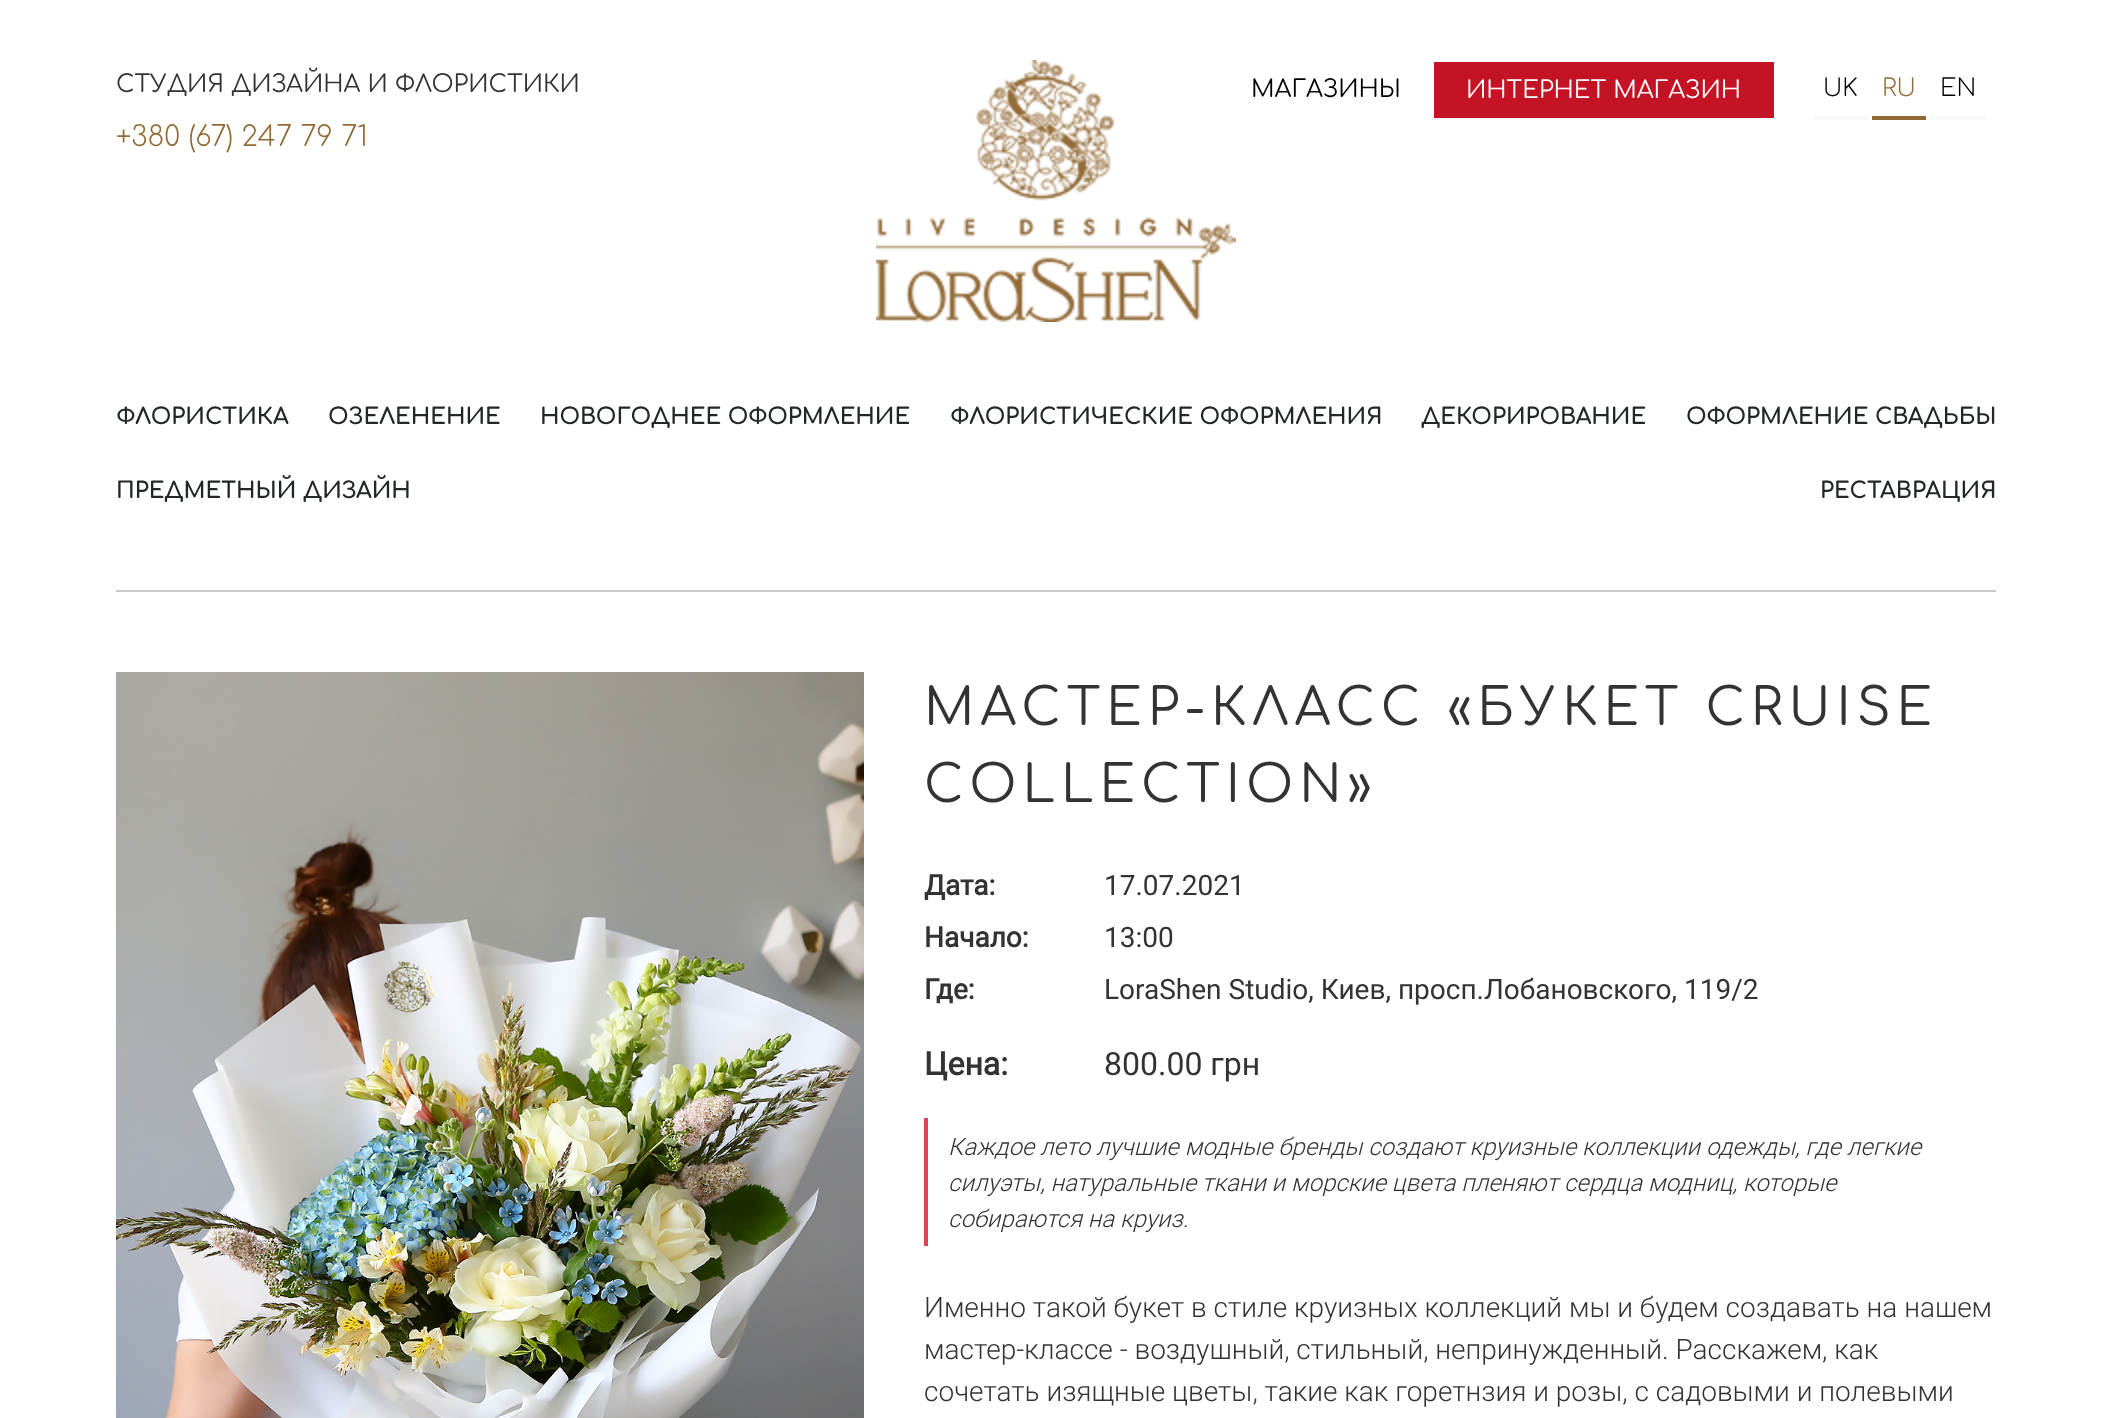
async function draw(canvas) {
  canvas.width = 2111
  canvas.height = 1418
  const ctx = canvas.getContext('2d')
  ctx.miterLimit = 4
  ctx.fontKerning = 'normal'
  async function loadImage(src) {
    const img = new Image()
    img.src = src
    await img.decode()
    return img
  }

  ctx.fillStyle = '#fff'
  ctx.fillRect(0, 0, 2111, 1418)
  ctx.font = '24px Comfortaa'
  ctx.fillStyle = '#333'
  ctx.fillText('СТУДИЯ ДИЗАЙНА И ФЛОРИСТИКИ', 116, 92)
  ctx.drawImage(await loadImage('image0.png'), 876, 60, 360, 262)
  ctx.font = '300 28px Comfortaa'
  ctx.fillStyle = '#926a36'
  ctx.fillText('+380 (67) 247 79 71', 116, 146)
  ctx.font = '24px Comfortaa'
  ctx.fillStyle = '#000'
  ctx.fillText('МАГАЗИНЫ', 1251, 97)
  ctx.fillStyle = '#c41324'
  ctx.fillRect(1434, 62, 340, 56)
  ctx.fillStyle = '#fff'
  ctx.fillText('ИНТЕРНЕТ МАГАЗИН', 1466, 98)
  ctx.fillStyle = '#f9f9f9'
  ctx.fillRect(1814, 116, 54, 4)
  ctx.font = '300 24px Comfortaa'
  ctx.fillStyle = '#000'
  ctx.fillText('UK', 1823, 96)
  ctx.fillStyle = '#926a36'
  ctx.fillRect(1872, 116, 54, 4)
  ctx.fillText('RU', 1882, 96)
  ctx.fillStyle = '#f9f9f9'
  ctx.fillRect(1930, 116, 56, 4)
  ctx.fillStyle = '#000'
  ctx.fillText('EN', 1940, 96)
  ctx.font = 'bold 22.4px Comfortaa'
  ctx.fillStyle = '#242729'
  ctx.fillText('ФЛОРИСТИКА', 116, 424)
  ctx.fillText('ОЗЕЛЕНЕНИЕ', 328, 424)
  ctx.fillText('НОВОГОДНЕЕ ОФОРМЛЕНИЕ', 540, 424)
  ctx.fillText('ФЛОРИСТИЧЕСКИЕ ОФОРМЛЕНИЯ', 950, 424)
  ctx.fillText('ДЕКОРИРОВАНИЕ', 1421, 424)
  ctx.fillText('ОФОРМЛЕНИЕ СВАДЬБЫ', 1686, 424)
  ctx.fillText('ПРЕДМЕТНЫЙ ДИЗАЙН', 116, 498)
  ctx.fillText('РЕСТАВРАЦИЯ', 1820, 498)
  ctx.fillStyle = '#c9c9c9'
  ctx.fillRect(116, 590, 1880, 2)
  ctx.drawImage(await loadImage('image1.png'), 116, 672, 748, 746)
  ctx.letterSpacing = '6px'
  ctx.font = '51.25px Comfortaa'
  ctx.fillStyle = '#333'
  ctx.fillText('МАСТЕР-КЛАСС «БУКЕТ CRUISE', 924, 725)
  ctx.fillText('COLLECTION»', 924, 802)
  ctx.letterSpacing = '0px'
  ctx.font = 'bold 28px Roboto'
  ctx.fillText('Дата:', 924, 895)
  ctx.font = '28px Roboto'
  ctx.fillText('17.07.2021', 1104, 895)
  ctx.font = 'bold 28px Roboto'
  ctx.fillText('Начало:', 924, 947)
  ctx.font = '28px Roboto'
  ctx.fillText('13:00', 1104, 947)
  ctx.font = 'bold 28px Roboto'
  ctx.fillText('Где:', 924, 999)
  ctx.font = '28px Roboto'
  ctx.fillText('LoraShen Studio, Киев, просп.Лобановского, 119/2', 1104, 999)
  ctx.font = 'bold 32px Roboto'
  ctx.fillText('Цена:', 924, 1075)
  ctx.font = '32px Roboto'
  ctx.fillText('800.00 грн', 1104, 1075)
  ctx.fillStyle = '#da4453'
  ctx.fillRect(924, 1118, 4, 128)
  ctx.font = 'italic 300 24px Roboto'
  ctx.fillStyle = '#333'
  ctx.fillText('Каждое лето лучшие модные бренды создают круизные коллекции одежды, где легкие', 948, 1155)
  ctx.fillText('силуэты, натуральные ткани и морские цвета пленяют сердца модниц, которые', 948, 1191)
  ctx.fillText('собираются на круиз.', 948, 1227)
  ctx.font = '300 28px Roboto'
  ctx.fillText('Именно такой букет в стиле круизных коллекций мы и будем создавать на нашем', 924, 1317)
  ctx.fillText('мастер-классе - воздушный, стильный, непринужденный. Расскажем, как', 924, 1359)
  ctx.fillText('сочетать изящные цветы, такие как горетнзия и розы, с садовыми и полевыми', 924, 1401)
}

draw(document.querySelector('canvas'))
